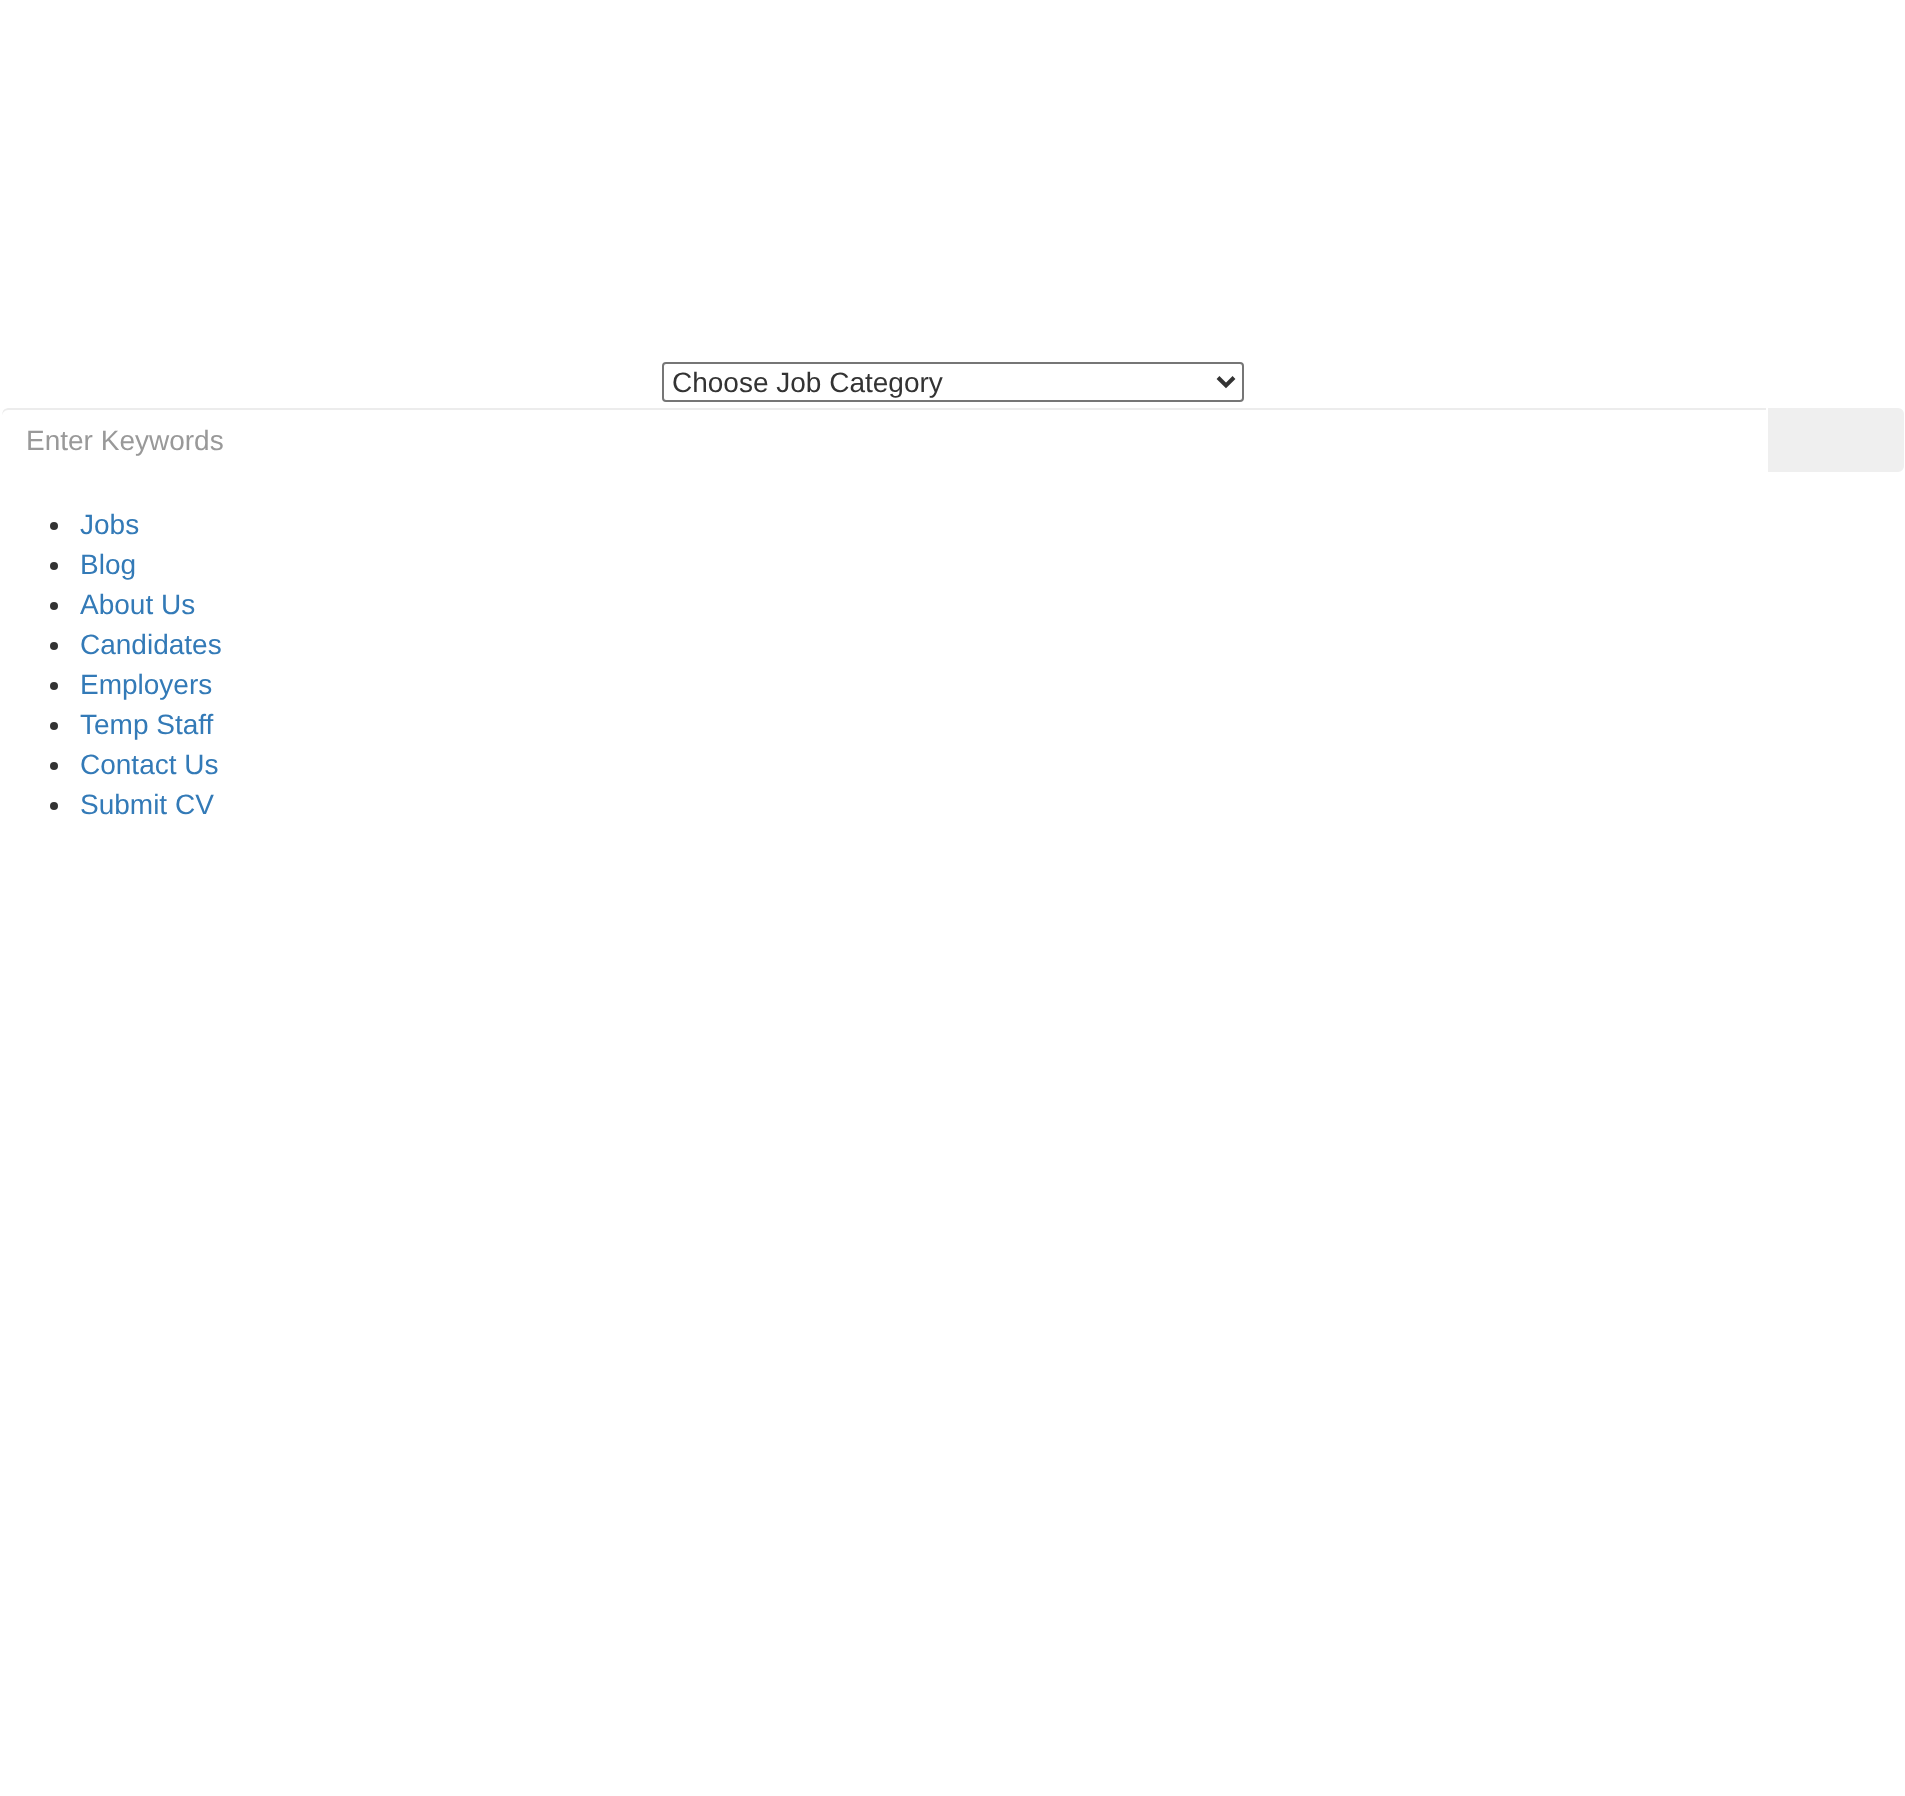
async function draw(canvas) {
  canvas.width = 1905
  canvas.height = 1796
  const ctx = canvas.getContext('2d')
  ctx.miterLimit = 4
  ctx.fontKerning = 'normal'

  ctx.fillStyle = '#fff'
  ctx.fillRect(0, 0, 1905, 1796)
  ctx.beginPath()
  ctx.roundRect(663, 363, 580, 38, 3)
  ctx.strokeStyle = '#767676'
  ctx.lineWidth = 2
  ctx.stroke()
  ctx.beginPath()
  ctx.moveTo(1218, 377.5)
  ctx.lineTo(1226, 385.5)
  ctx.lineTo(1234, 377.5)
  ctx.strokeStyle = '#333'
  ctx.lineWidth = 4
  ctx.stroke()
  ctx.font = '28px Liberation Sans'
  ctx.fillStyle = '#333'
  ctx.fillText('Choose Job Category', 672, 392)
  ctx.fillStyle = '#ececec'
  ctx.beginPath()
  ctx.moveTo(8, 410)
  ctx.lineTo(1766, 410)
  ctx.lineTo(1766, 408)
  ctx.lineTo(8, 408)
  ctx.bezierCurveTo(3, 408, 2, 412, 2, 416)
  ctx.bezierCurveTo(2, 413, 5, 410, 8, 410)
  ctx.closePath()
  ctx.fill()
  ctx.beginPath()
  ctx.roundRect(1, 407, 1766, 66, [7, 0, 0, 7])
  ctx.strokeStyle = '#fff'
  ctx.lineWidth = 2
  ctx.stroke()
  ctx.fillStyle = '#999'
  ctx.fillText('Enter Keywords', 26, 450)
  ctx.fillStyle = '#efefef'
  ctx.beginPath()
  ctx.moveTo(1767, 407)
  ctx.lineTo(1898, 407)
  ctx.bezierCurveTo(1902, 407, 1905, 410, 1905, 414)
  ctx.lineTo(1905, 466)
  ctx.bezierCurveTo(1905, 470, 1902, 473, 1898, 473)
  ctx.lineTo(1767, 473)
  ctx.closePath()
  ctx.fill()
  ctx.stroke()
  ctx.fillStyle = '#333'
  ctx.beginPath()
  ctx.arc(54, 526, 4, 0, 2 * Math.PI)
  ctx.fill()
  ctx.fillStyle = '#337ab7'
  ctx.fillText('Jobs', 80, 534)
  ctx.fillStyle = '#333'
  ctx.beginPath()
  ctx.arc(54, 566, 4, 0, 2 * Math.PI)
  ctx.fill()
  ctx.fillStyle = '#337ab7'
  ctx.fillText('Blog', 80, 574)
  ctx.fillStyle = '#333'
  ctx.beginPath()
  ctx.arc(54, 606, 4, 0, 2 * Math.PI)
  ctx.fill()
  ctx.fillStyle = '#337ab7'
  ctx.fillText('About Us', 80, 614)
  ctx.fillStyle = '#333'
  ctx.beginPath()
  ctx.arc(54, 646, 4, 0, 2 * Math.PI)
  ctx.fill()
  ctx.fillStyle = '#337ab7'
  ctx.fillText('Candidates', 80, 654)
  ctx.fillStyle = '#333'
  ctx.beginPath()
  ctx.arc(54, 686, 4, 0, 2 * Math.PI)
  ctx.fill()
  ctx.fillStyle = '#337ab7'
  ctx.fillText('Employers', 80, 694)
  ctx.fillStyle = '#333'
  ctx.beginPath()
  ctx.arc(54, 726, 4, 0, 2 * Math.PI)
  ctx.fill()
  ctx.fillStyle = '#337ab7'
  ctx.fillText('Temp Staff', 80, 734)
  ctx.fillStyle = '#333'
  ctx.beginPath()
  ctx.arc(54, 766, 4, 0, 2 * Math.PI)
  ctx.fill()
  ctx.fillStyle = '#337ab7'
  ctx.fillText('Contact Us', 80, 774)
  ctx.fillStyle = '#333'
  ctx.beginPath()
  ctx.arc(54, 806, 4, 0, 2 * Math.PI)
  ctx.fill()
  ctx.fillStyle = '#337ab7'
  ctx.fillText('Submit CV', 80, 814)
}

draw(document.querySelector('canvas'))
